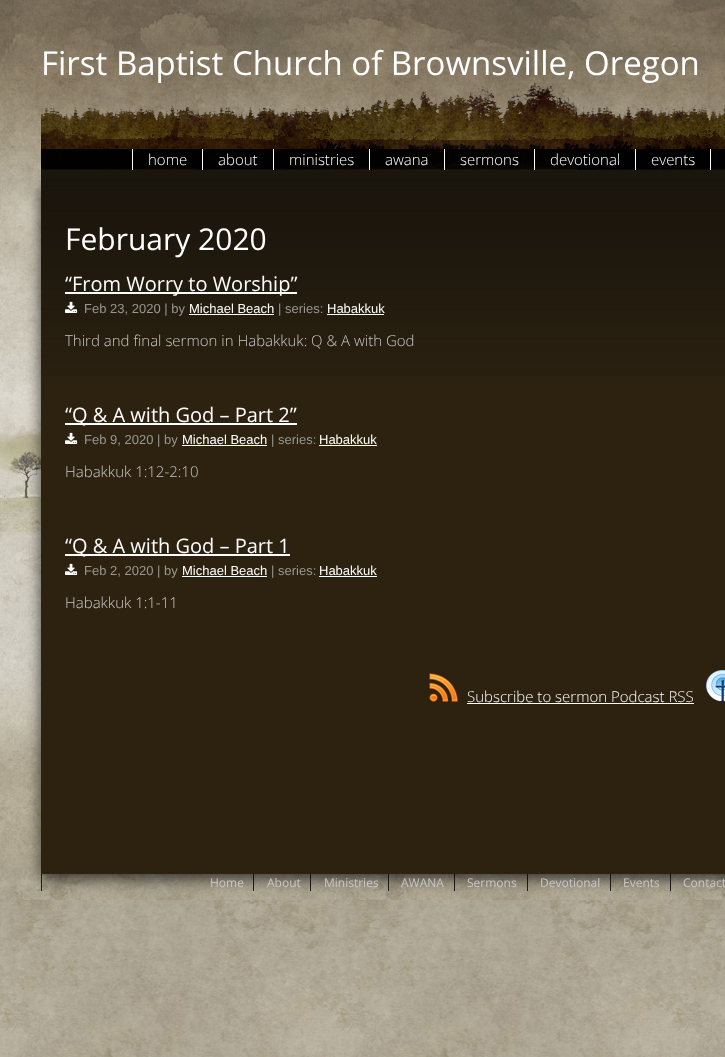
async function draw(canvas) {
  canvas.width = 725
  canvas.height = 1057
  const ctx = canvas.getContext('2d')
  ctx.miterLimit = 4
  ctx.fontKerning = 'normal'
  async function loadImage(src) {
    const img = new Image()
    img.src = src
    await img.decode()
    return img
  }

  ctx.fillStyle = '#fff'
  ctx.fillRect(0, 0, 725, 1057)
  ctx.drawImage(await loadImage('image0.png'), 0, 900, 725, 157)
  ctx.drawImage(await loadImage('image1.png'), 0, 0, 725, 900)
  ctx.drawImage(await loadImage('image2.png'), 0, 0, 725, 71)
  ctx.fillStyle = '#231f20'
  ctx.fillRect(41, 874, 1, 17)
  ctx.fillRect(253, 874, 1, 17)
  ctx.fillRect(310, 874, 1, 17)
  ctx.fillRect(388, 874, 1, 17)
  ctx.fillRect(454, 874, 1, 17)
  ctx.fillRect(527, 874, 1, 17)
  ctx.fillRect(610, 874, 1, 17)
  ctx.fillRect(670, 874, 1, 17)
  ctx.fillStyle = '#000000b3'
  ctx.filter = 'blur(7.5px)'
  ctx.beginPath()
  ctx.rect(41, 186, 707, 693)
  ctx.fill()
  ctx.filter = 'none'
  ctx.drawImage(await loadImage('image3.png'), 41, 76, 684, 105)
  ctx.font = '33px Open Sans'
  ctx.fillStyle = '#fff'
  ctx.fillText('First Baptist Church of Brownsville, Oregon', 41, 75)
  ctx.fillRect(132, 149, 1, 21)
  ctx.font = '300 15px Open Sans'
  ctx.fillText('home', 148, 165)
  ctx.fillRect(202, 149, 1, 21)
  ctx.fillText('about', 218, 165)
  ctx.fillRect(273, 149, 1, 21)
  ctx.fillText('ministries', 289, 165)
  ctx.fillRect(369, 149, 1, 21)
  ctx.fillText('awana', 385, 165)
  ctx.fillRect(444, 149, 1, 21)
  ctx.fillText('sermons', 460, 165)
  ctx.fillRect(534, 149, 1, 21)
  ctx.fillText('devotional', 550, 165)
  ctx.fillRect(635, 149, 1, 21)
  ctx.fillText('events', 651, 165)
  ctx.fillRect(710, 149, 1, 21)
  ctx.fillStyle = '#2d2210'
  ctx.fillRect(41, 376, 684, 498)
  ctx.drawImage(await loadImage('image4.png'), 41, 181, 684, 195)
  ctx.font = '30px Open Sans'
  ctx.fillStyle = '#fff'
  ctx.fillText('February 2020', 65, 250)
  ctx.fillRect(65, 292, 232, 2)
  ctx.font = '20px Open Sans'
  ctx.fillText('“From Worry to Worship”', 65, 291)
  ctx.drawImage(await loadImage('image5.png'), 65, 301, 13, 12)
  ctx.font = '13px Liberation Sans'
  ctx.fillStyle = '#999792'
  ctx.fillText('Feb 23, 2020 | by', 84, 313)
  ctx.fillStyle = '#fff'
  ctx.fillText('Michael Beach', 189, 313)
  ctx.fillRect(189, 314, 85, 1)
  ctx.fillStyle = '#999792'
  ctx.fillText('| series:', 278, 313)
  ctx.fillStyle = '#fff'
  ctx.fillText('Habakkuk', 327, 313)
  ctx.fillRect(327, 314, 57, 1)
  ctx.font = '300 15px Open Sans'
  ctx.fillStyle = '#c8c7c7'
  ctx.fillText('Third and final sermon in Habakkuk: Q & A with God', 65, 346)
  ctx.fillStyle = '#fff'
  ctx.fillRect(65, 423, 232, 2)
  ctx.font = '20px Open Sans'
  ctx.fillText('“Q & A with God – Part 2”', 65, 422)
  ctx.drawImage(await loadImage('image6.png'), 65, 432, 13, 12)
  ctx.font = '13px Liberation Sans'
  ctx.fillStyle = '#999792'
  ctx.fillText('Feb 9, 2020 | by', 84, 444)
  ctx.fillStyle = '#fff'
  ctx.fillText('Michael Beach', 182, 444)
  ctx.fillRect(182, 445, 85, 1)
  ctx.fillStyle = '#999792'
  ctx.fillText('| series:', 271, 444)
  ctx.fillStyle = '#fff'
  ctx.fillText('Habakkuk', 319, 444)
  ctx.fillRect(319, 445, 58, 1)
  ctx.font = '300 15px Open Sans'
  ctx.fillStyle = '#c8c7c7'
  ctx.fillText('Habakkuk 1:12-2:10', 65, 477)
  ctx.fillStyle = '#fff'
  ctx.fillRect(65, 554, 225, 2)
  ctx.font = '20px Open Sans'
  ctx.fillText('“Q & A with God – Part 1', 65, 553)
  ctx.drawImage(await loadImage('image6.png'), 65, 563, 13, 12)
  ctx.font = '13px Liberation Sans'
  ctx.fillStyle = '#999792'
  ctx.fillText('Feb 2, 2020 | by', 84, 575)
  ctx.fillStyle = '#fff'
  ctx.fillText('Michael Beach', 182, 575)
  ctx.fillRect(182, 576, 85, 1)
  ctx.fillStyle = '#999792'
  ctx.fillText('| series:', 271, 575)
  ctx.fillStyle = '#fff'
  ctx.fillText('Habakkuk', 319, 575)
  ctx.fillRect(319, 576, 58, 1)
  ctx.font = '300 15px Open Sans'
  ctx.fillStyle = '#c8c7c7'
  ctx.fillText('Habakkuk 1:1-11', 65, 608)
  ctx.drawImage(await loadImage('image7.png'), 429, 673, 29, 29)
  ctx.fillStyle = '#fff'
  ctx.fillText('Subscribe to sermon Podcast RSS', 467, 702)
  ctx.fillRect(467, 703, 227, 1)
  ctx.drawImage(await loadImage('image8.png'), 706, 670, 19, 32)
  ctx.font = '12px Open Sans'
  ctx.fillStyle = '#c8c7c7'
  ctx.fillText('Home', 210, 887)
  ctx.fillText('About', 267, 887)
  ctx.fillText('Ministries', 324, 887)
  ctx.fillText('AWANA', 401, 887)
  ctx.fillText('Sermons', 467, 887)
  ctx.fillText('Devotional', 540, 887)
  ctx.fillText('Events', 623, 887)
  ctx.fillText('Contact', 683, 887)
}

draw(document.querySelector('canvas'))
